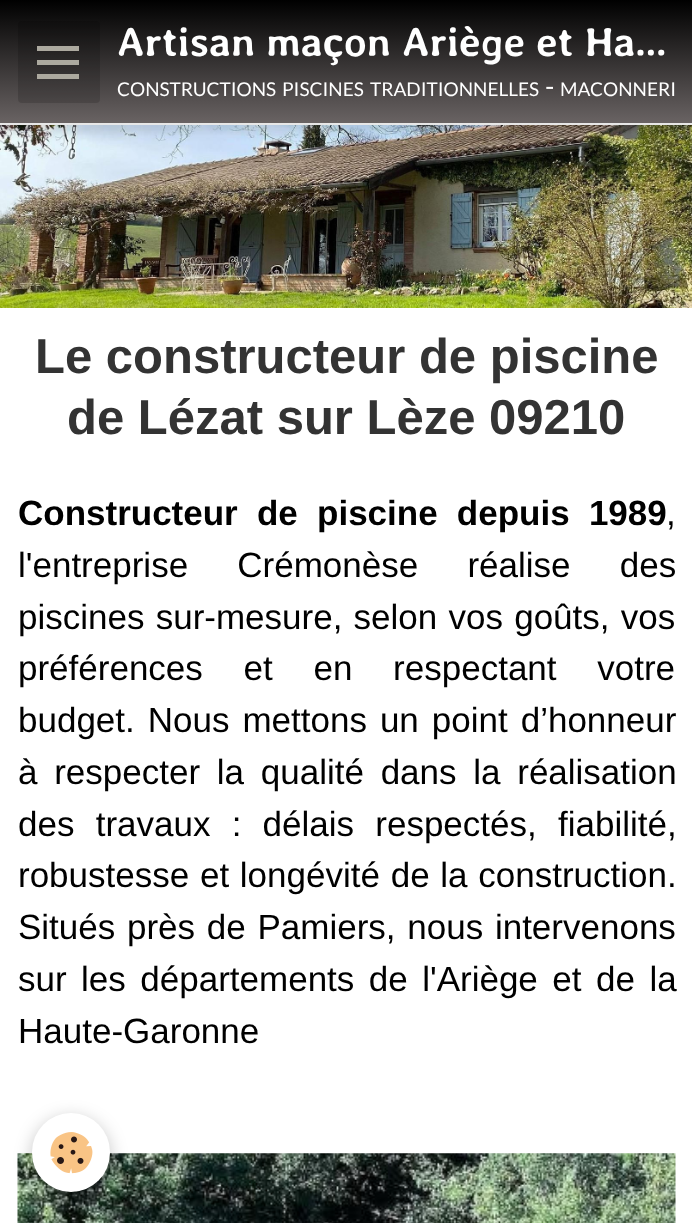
async function draw(canvas) {
  canvas.width = 692
  canvas.height = 1223
  const ctx = canvas.getContext('2d')
  ctx.miterLimit = 4
  ctx.fontKerning = 'normal'
  async function loadImage(src) {
    const img = new Image()
    img.src = src
    await img.decode()
    return img
  }
  let gradient

  ctx.fillStyle = '#fff'
  ctx.fillRect(0, 0, 692, 1223)
  ctx.drawImage(await loadImage('image0.png'), 0, 125, 692, 183)
  ctx.fillStyle = '#0000001a'
  ctx.filter = 'blur(4.5px)'
  ctx.beginPath()
  ctx.rect(0, 9, 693, 124)
  ctx.fill()
  ctx.filter = 'none'
  ctx.fillStyle = '#e7e7e7'
  ctx.fillRect(0, 123, 692, 2)
  gradient = ctx.createLinearGradient(347, 0, 347, 123)
  gradient.addColorStop(0, '#000')
  gradient.addColorStop(1, '#696363')
  ctx.fillStyle = gradient
  ctx.fillRect(0, 0, 692, 123)
  ctx.fillStyle = '#00000026'
  ctx.beginPath()
  ctx.roundRect(18, 21, 82, 82, 4)
  ctx.fill()
  ctx.fillStyle = '#aca99f'
  ctx.fillRect(37, 60, 42, 5)
  ctx.fillRect(37, 46, 42, 5)
  ctx.fillRect(37, 74, 42, 5)
  ctx.font = 'bold 41px Averia Libre'
  ctx.fillStyle = '#fff'
  ctx.fillText('Artisan maçon Ariège et Ha…', 117, 56)
  ctx.font = '19px Lato'
  ctx.fillText('CONSTRUCTIONS', 117, 96)
  ctx.fillText('PISCINES', 282, 96)
  ctx.fillText('TRADITIONNELLES', 370, 96)
  ctx.font = '27px Lato'
  ctx.fillText('-', 545, 96)
  ctx.font = '19px Lato'
  ctx.fillText('MACONNERI', 560, 96)
  ctx.font = 'bold 49px Liberation Sans'
  ctx.fillStyle = '#333'
  ctx.fillText('Le constructeur de piscine', 35, 373)
  ctx.fillText('de Lézat sur Lèze 09210', 67, 434)
  ctx.wordSpacing = '9.5px'
  ctx.font = 'bold 35px Liberation Sans'
  ctx.fillStyle = '#000'
  ctx.fillText('Constructeur de piscine depuis 1989', 18, 525)
  ctx.wordSpacing = '0px'
  ctx.font = '35px Liberation Sans'
  ctx.fillText(',', 666, 525)
  ctx.wordSpacing = '39.5px'
  ctx.fillText('l\'entreprise Crémonèse réalise des', 18, 577)
  ctx.wordSpacing = '1.5px'
  ctx.fillText('piscines sur-mesure, selon vos goûts, vos', 18, 629)
  ctx.wordSpacing = '31px'
  ctx.fillText('préférences et en respectant votre', 18, 680)
  ctx.wordSpacing = '3.25px'
  ctx.fillText('budget. Nous mettons un point d’honneur', 18, 732)
  ctx.wordSpacing = '7px'
  ctx.fillText('à respecter la qualité dans la réalisation', 18, 784)
  ctx.wordSpacing = '11.5px'
  ctx.fillText('des travaux : délais respectés, fiabilité,', 18, 836)
  ctx.wordSpacing = '1px'
  ctx.fillText('robustesse et longévité de la construction.', 18, 887)
  ctx.wordSpacing = '2px'
  ctx.fillText('Situés près de Pamiers, nous intervenons', 18, 939)
  ctx.wordSpacing = '4.75px'
  ctx.fillText('sur les départements de l\'Ariège et de la', 18, 991)
  ctx.wordSpacing = '0px'
  ctx.fillText('Haute-Garonne', 18, 1043)
  ctx.drawImage(await loadImage('image1.png'), 17, 1153, 659, 70)
  ctx.fillStyle = '#0000003d'
  ctx.filter = 'blur(9px)'
  ctx.beginPath()
  ctx.roundRect(32, 1118, 78, 79, 39)
  ctx.fill()
  ctx.filter = 'none'
  ctx.fillStyle = '#fff'
  ctx.beginPath()
  ctx.roundRect(32, 1113, 78, 79, 39)
  ctx.fill()
  ctx.drawImage(await loadImage('image2.png'), 50, 1132, 43, 42)
}

draw(document.querySelector('canvas'))
